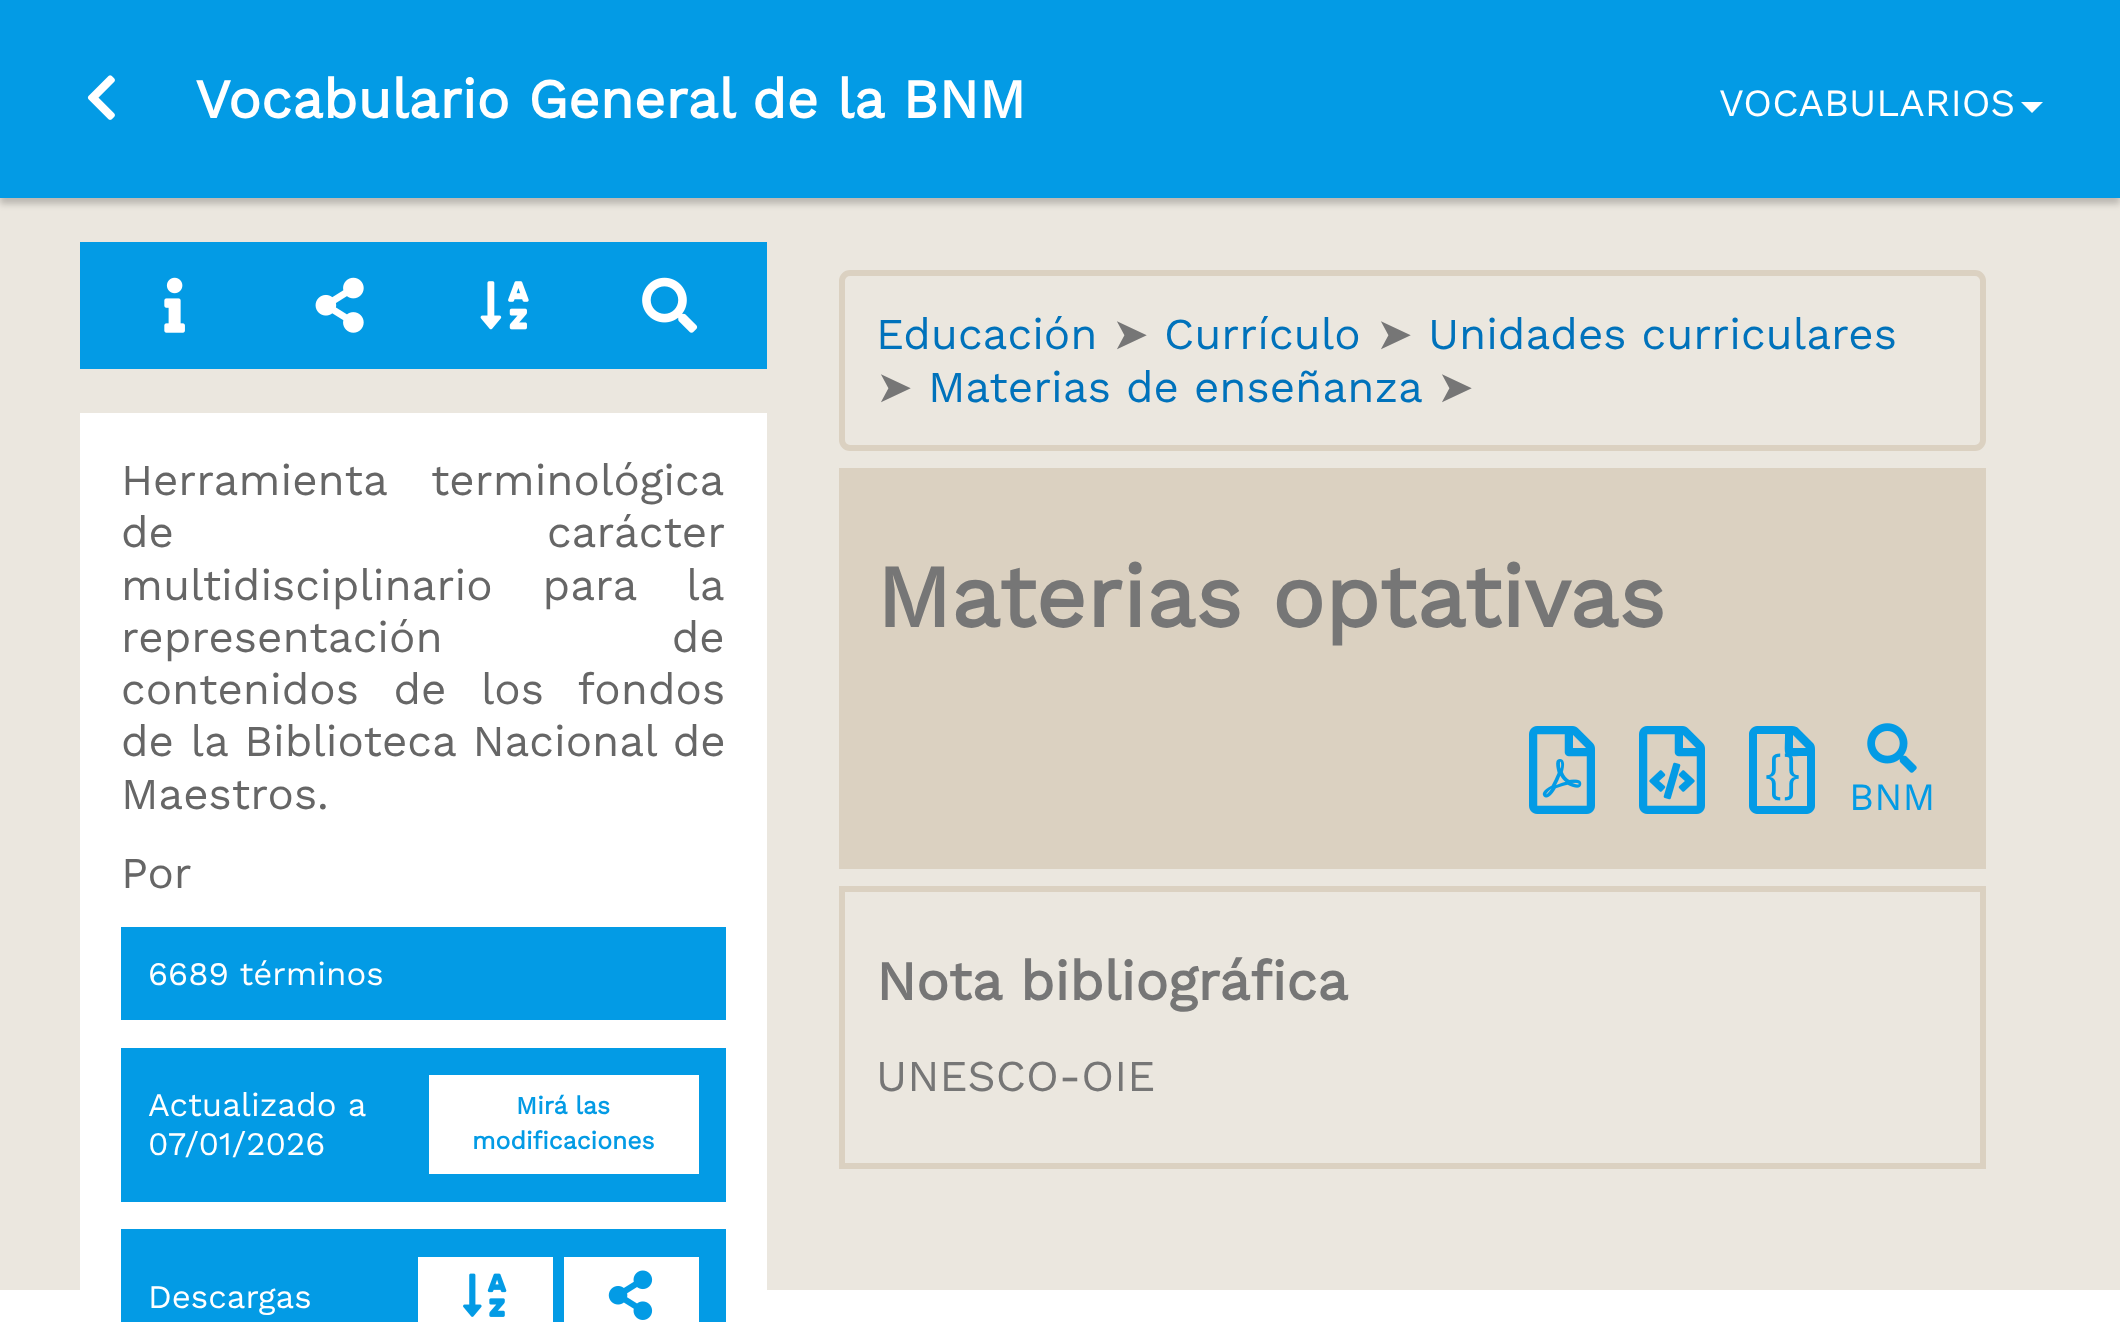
async function draw(canvas) {
  canvas.width = 2120
  canvas.height = 1322
  const ctx = canvas.getContext('2d')
  ctx.miterLimit = 4
  ctx.fontKerning = 'normal'
  async function loadImage(src) {
    const img = new Image()
    img.src = src
    await img.decode()
    return img
  }

  ctx.fillStyle = '#fff'
  ctx.fillRect(0, 0, 2120, 1322)
  ctx.fillStyle = '#ebe7df'
  ctx.fillRect(0, 198, 2120, 1092)
  ctx.fillStyle = '#00000033'
  ctx.filter = 'blur(3px)'
  ctx.beginPath()
  ctx.rect(0, 6, 2120, 198)
  ctx.fill()
  ctx.filter = 'none'
  ctx.fillStyle = '#039be5'
  ctx.fillRect(0, 0, 2120, 198)
  ctx.drawImage(await loadImage('image0.png'), 87, 75, 28, 45)
  ctx.font = 'bold 55px Work Sans'
  ctx.fillStyle = '#fff'
  ctx.fillText('Vocabulario General de la BNM', 195, 118)
  ctx.font = '38.5px Work Sans'
  ctx.fillText('VOCABULARIOS', 1719, 116)
  ctx.beginPath()
  ctx.moveTo(2021, 102)
  ctx.lineTo(2043, 102)
  ctx.lineTo(2032, 113)
  ctx.closePath()
  ctx.fill()
  ctx.fillStyle = '#039be5'
  ctx.fillRect(80, 242, 687, 127)
  ctx.drawImage(await loadImage('image1.png'), 164, 277, 21, 56)
  ctx.drawImage(await loadImage('image2.png'), 315, 277, 49, 56)
  ctx.drawImage(await loadImage('image3.png'), 480, 281, 49, 49)
  ctx.drawImage(await loadImage('image4.png'), 642, 277, 56, 56)
  ctx.fillStyle = '#fff'
  ctx.fillRect(80, 413, 687, 877)
  ctx.wordSpacing = '30px'
  ctx.font = '44px Work Sans'
  ctx.fillStyle = '#666'
  ctx.fillText('Herramienta terminológica', 121, 495)
  ctx.wordSpacing = '358px'
  ctx.fillText('de carácter', 121, 547)
  ctx.wordSpacing = '35px'
  ctx.fillText('multidisciplinario para la', 121, 600)
  ctx.wordSpacing = '214px'
  ctx.fillText('representación de', 121, 652)
  ctx.wordSpacing = '19.5px'
  ctx.fillText('contenidos de los fondos', 121, 704)
  ctx.wordSpacing = '1.5px'
  ctx.fillText('de la Biblioteca Nacional de', 121, 756)
  ctx.wordSpacing = '0px'
  ctx.fillText('Maestros.', 121, 809)
  ctx.fillText('Por', 121, 888)
  ctx.fillStyle = '#039be5'
  ctx.fillRect(121, 927, 605, 93)
  ctx.font = '33px Work Sans'
  ctx.fillStyle = '#fff'
  ctx.fillText('6689 términos', 148, 985)
  ctx.fillStyle = '#039be5'
  ctx.fillRect(121, 1048, 605, 154)
  ctx.fillStyle = '#fff'
  ctx.fillText('Actualizado a', 148, 1116)
  ctx.fillText('07/01/2026', 148, 1155)
  ctx.fillRect(429, 1075, 270, 99)
  ctx.font = 'bold 24.75px Work Sans'
  ctx.fillStyle = '#039be5'
  ctx.fillText('Mirá las', 516, 1114)
  ctx.fillText('modificaciones', 472, 1149)
  ctx.fillRect(121, 1229, 605, 93)
  ctx.font = '33px Work Sans'
  ctx.fillStyle = '#fff'
  ctx.fillText('Descargas', 148, 1308)
  ctx.fillRect(418, 1257, 135, 65)
  ctx.drawImage(await loadImage('image5.png'), 463, 1273, 44, 44)
  ctx.fillRect(564, 1257, 135, 65)
  ctx.drawImage(await loadImage('image6.png'), 608, 1270, 45, 50)
  ctx.beginPath()
  ctx.roundRect(842, 273, 1141, 175, 8)
  ctx.strokeStyle = '#dbd1c1'
  ctx.lineWidth = 6
  ctx.stroke()
  ctx.font = '44px Work Sans'
  ctx.fillStyle = '#0072bb'
  ctx.fillText('Educación', 876, 349)
  ctx.font = '44px DejaVu Sans'
  ctx.fillStyle = '#767676'
  ctx.fillText('➤', 1112, 349)
  ctx.font = '44px Work Sans'
  ctx.fillStyle = '#0072bb'
  ctx.fillText('Currículo', 1164, 349)
  ctx.font = '44px DejaVu Sans'
  ctx.fillStyle = '#767676'
  ctx.fillText('➤', 1376, 349)
  ctx.font = '44px Work Sans'
  ctx.fillStyle = '#0072bb'
  ctx.fillText('Unidades curriculares', 1428, 349)
  ctx.font = '44px DejaVu Sans'
  ctx.fillStyle = '#767676'
  ctx.fillText('➤', 876, 402)
  ctx.font = '44px Work Sans'
  ctx.fillStyle = '#0072bb'
  ctx.fillText('Materias de enseñanza', 928, 402)
  ctx.font = '44px DejaVu Sans'
  ctx.fillStyle = '#767676'
  ctx.fillText('➤', 1437, 402)
  ctx.fillStyle = '#dbd1c1'
  ctx.fillRect(839, 468, 1147, 401)
  ctx.font = 'bold 88px Work Sans'
  ctx.fillStyle = '#767676'
  ctx.fillText('Materias optativas', 876, 627)
  ctx.drawImage(await loadImage('image7.png'), 1529, 726, 66, 88)
  ctx.drawImage(await loadImage('image8.png'), 1639, 726, 66, 88)
  ctx.fillStyle = '#039be5'
  ctx.beginPath()
  ctx.moveTo(1813, 743)
  ctx.lineTo(1798, 728)
  ctx.bezierCurveTo(1797, 727, 1795, 726, 1792, 726)
  ctx.lineTo(1757, 726)
  ctx.bezierCurveTo(1753, 726, 1749, 730, 1749, 734)
  ctx.lineTo(1749, 806)
  ctx.bezierCurveTo(1749, 810, 1753, 814, 1757, 814)
  ctx.lineTo(1807, 814)
  ctx.bezierCurveTo(1811, 814, 1815, 810, 1815, 806)
  ctx.lineTo(1815, 749)
  ctx.bezierCurveTo(1815, 746, 1814, 744, 1813, 743)
  ctx.closePath()
  ctx.moveTo(1806, 748)
  ctx.lineTo(1793, 748)
  ctx.lineTo(1793, 735)
  ctx.closePath()
  ctx.moveTo(1757, 806)
  ctx.lineTo(1757, 734)
  ctx.lineTo(1785, 734)
  ctx.bezierCurveTo(1785, 760, 1781, 756, 1807, 756)
  ctx.lineTo(1807, 806)
  ctx.closePath()
  ctx.fill()
  ctx.font = '50px Work Sans'
  ctx.fillText('{}', 1765, 791)
  ctx.drawImage(await loadImage('image9.png'), 1867, 723, 50, 50)
  ctx.font = '38.5px Work Sans'
  ctx.fillText('BNM', 1849, 810)
  ctx.strokeRect(842, 889, 1141, 277)
  ctx.font = 'bold 55px Work Sans'
  ctx.fillStyle = '#767676'
  ctx.fillText('Nota bibliográfica', 876, 1000)
  ctx.font = '44px Work Sans'
  ctx.fillText('UNESCO-OIE', 876, 1091)
}

draw(document.querySelector('canvas'))
